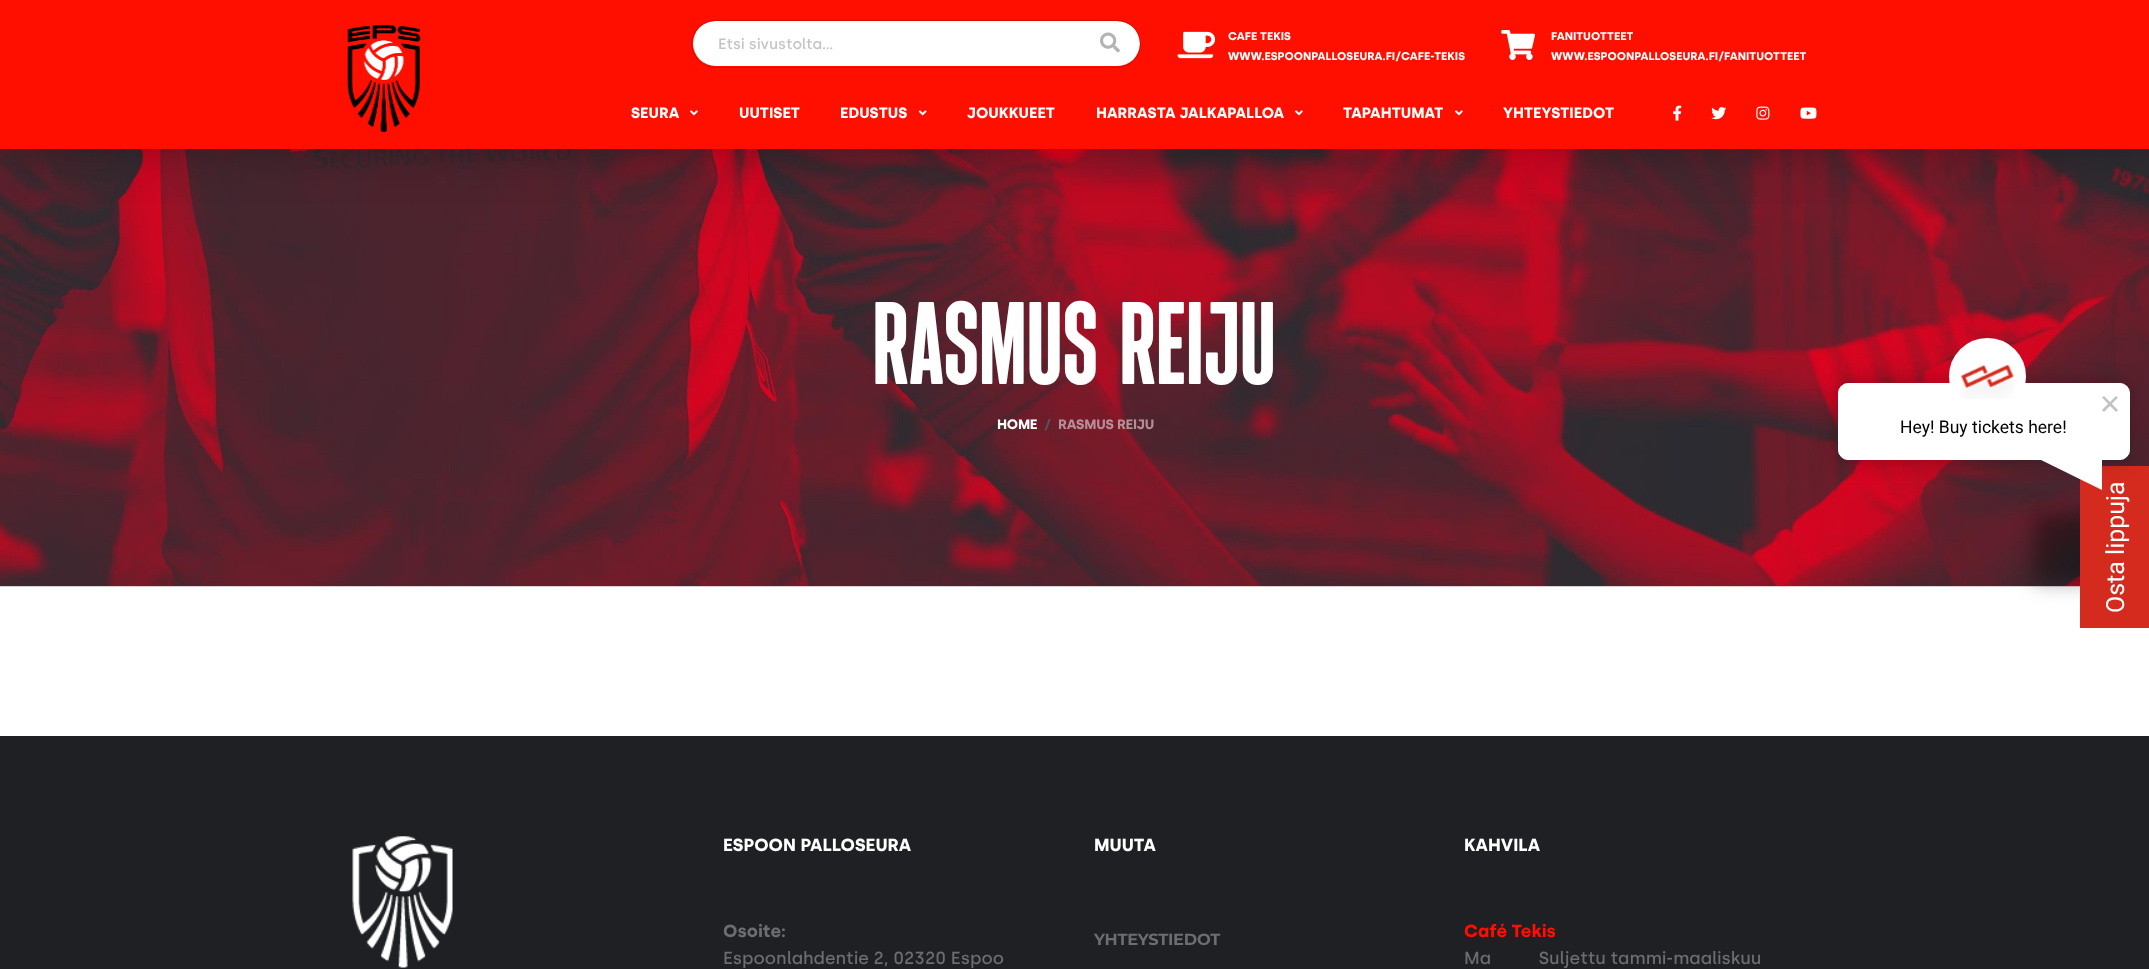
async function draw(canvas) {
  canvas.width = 2149
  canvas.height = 969
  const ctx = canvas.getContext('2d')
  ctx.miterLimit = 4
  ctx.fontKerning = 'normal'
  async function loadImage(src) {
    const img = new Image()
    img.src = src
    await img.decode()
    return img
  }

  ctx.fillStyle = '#fff'
  ctx.fillRect(0, 0, 2149, 969)
  ctx.drawImage(await loadImage('image10.png'), 0, 149, 2149, 438)
  ctx.fillStyle = '#000'
  ctx.filter = 'blur(40px)'
  ctx.beginPath()
  ctx.rect(0, -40, 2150, 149)
  ctx.fill()
  ctx.filter = 'none'
  ctx.fillStyle = '#ff0f00'
  ctx.fillRect(0, 0, 2149, 149)
  ctx.fillStyle = '#fff'
  ctx.beginPath()
  ctx.roundRect(693, 21, 447, 45, 22.5)
  ctx.fill()
  ctx.beginPath()
  ctx.roundRect(691.5, 20.5, 449, 47, 23.5)
  ctx.strokeStyle = '#d90d00'
  ctx.stroke()
  ctx.font = '500 15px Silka'
  ctx.fillStyle = '#c2c4c7'
  ctx.fillText('Etsi sivustolta...', 718, 49)
  ctx.drawImage(await loadImage('image0.png'), 1100, 32, 20, 21)
  ctx.drawImage(await loadImage('image1.png'), 1177, 31, 39, 28)
  ctx.font = 'bold 11.25px Silka'
  ctx.fillStyle = '#fff'
  ctx.fillText('CAFE TEKIS', 1228, 40)
  ctx.fillText('WWW.ESPOONPALLOSEURA.FI/CAFE-TEKIS', 1228, 60)
  ctx.drawImage(await loadImage('image2.png'), 1501, 30, 34, 30)
  ctx.fillText('FANITUOTTEET', 1551, 40)
  ctx.fillText('WWW.ESPOONPALLOSEURA.FI/FANITUOTTEET', 1551, 60)
  ctx.drawImage(await loadImage('image3.png'), 347, 25, 74, 108)
  ctx.font = 'bold 15px Silka'
  ctx.fillText('SEURA', 631, 118)
  ctx.drawImage(await loadImage('image4.png'), 690, 110, 8, 6)
  ctx.fillText('UUTISET', 739, 118)
  ctx.fillText('EDUSTUS', 840, 118)
  ctx.drawImage(await loadImage('image5.png'), 918, 110, 9, 6)
  ctx.fillText('JOUKKUEET', 967, 118)
  ctx.fillText('HARRASTA JALKAPALLOA', 1096, 118)
  ctx.drawImage(await loadImage('image4.png'), 1295, 110, 8, 6)
  ctx.fillText('TAPAHTUMAT', 1343, 118)
  ctx.drawImage(await loadImage('image4.png'), 1455, 110, 8, 6)
  ctx.fillText('YHTEYSTIEDOT', 1503, 118)
  ctx.drawImage(await loadImage('image6.png'), 1673, 105, 9, 16)
  ctx.drawImage(await loadImage('image7.png'), 1711, 107, 16, 13)
  ctx.drawImage(await loadImage('image8.png'), 1756, 106, 14, 14)
  ctx.drawImage(await loadImage('image9.png'), 1800, 107, 17, 12)
  ctx.letterSpacing = '1.25px'
  ctx.font = 'bold 112.5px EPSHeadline'
  ctx.fillText('Rasmus', 873, 384)
  ctx.fillText('Reiju', 1120, 384)
  ctx.letterSpacing = '-0.25px'
  ctx.font = 'bold 13.75px Silka'
  ctx.fillText('HOME', 997, 429)
  ctx.fillStyle = '#555'
  ctx.fillText('/', 1044, 429)
  ctx.fillStyle = '#b68e95'
  ctx.fillText('RASMUS REIJU', 1058, 429)
  ctx.fillStyle = '#1e2024'
  ctx.fillRect(0, 736, 2149, 233)
  ctx.drawImage(await loadImage('image11.png'), 352, 836, 101, 132)
  ctx.letterSpacing = '0px'
  ctx.font = 'bold 17.5px Silka'
  ctx.fillStyle = '#fff'
  ctx.fillText('ESPOON PALLOSEURA', 723, 851)
  ctx.fillStyle = '#6b6d70'
  ctx.fillText('Osoite:', 723, 937)
  ctx.font = '500 17.5px Silka'
  ctx.fillText('Espoonlahdentie 2, 02320 Espoo', 723, 964)
  ctx.font = 'bold 17.5px Silka'
  ctx.fillStyle = '#fff'
  ctx.fillText('MUUTA', 1094, 851)
  ctx.letterSpacing = '-0.25px'
  ctx.font = 'bold 16.25px Montserrat'
  ctx.fillStyle = '#6b6d70'
  ctx.fillText('YHTEYSTIEDOT', 1094, 945)
  ctx.letterSpacing = '0px'
  ctx.font = 'bold 17.5px Silka'
  ctx.fillStyle = '#fff'
  ctx.fillText('KAHVILA', 1464, 851)
  ctx.fillStyle = '#ff0f00'
  ctx.fillText('Café Tekis', 1464, 937)
  ctx.font = '500 17.5px Silka'
  ctx.fillStyle = '#6b6d70'
  ctx.fillText('Ma          Suljettu tammi-maaliskuu', 1464, 964)
  ctx.fillStyle = '#00000059'
  ctx.filter = 'blur(9.5px)'
  ctx.beginPath()
  ctx.rect(2034, 513, 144, 70)
  ctx.fill()
  ctx.filter = 'none'
  ctx.fillStyle = '#d52b1e'
  ctx.fillRect(2080, 466, 69, 162)
  ctx.fillStyle = '#00000040'
  ctx.filter = 'blur(9.5px)'
  ctx.beginPath()
  ctx.roundRect(1838, 383, 292, 77, 10)
  ctx.fill()
  ctx.filter = 'none'
  ctx.fillStyle = '#fff'
  ctx.beginPath()
  ctx.roundRect(1838.5, 383.5, 291, 76, 9.5)
  ctx.fill()
  ctx.strokeStyle = '#fff'
  ctx.stroke()
  ctx.beginPath()
  ctx.arc(1987.5, 376.5, 34.5, 0, 2 * Math.PI)
  ctx.fill()
  ctx.lineWidth = 8
  ctx.stroke()
  ctx.drawImage(await loadImage('image12.png'), 1960, 364, 54, 35)
  ctx.fillStyle = '#c2c2c2'
  ctx.beginPath()
  ctx.moveTo(2116, 396)
  ctx.lineTo(2118, 397.5)
  ctx.lineTo(2104, 412)
  ctx.lineTo(2102, 410)
  ctx.closePath()
  ctx.fill()
  ctx.beginPath()
  ctx.moveTo(2102, 397.5)
  ctx.lineTo(2104, 396)
  ctx.lineTo(2118, 410)
  ctx.lineTo(2116, 412)
  ctx.closePath()
  ctx.fill()
  ctx.font = '17.5px Roboto'
  ctx.fillStyle = '#000'
  ctx.fillText('Hey! Buy tickets here!', 1900, 433)
  ctx.fillStyle = '#fff'
  ctx.beginPath()
  ctx.moveTo(2039, 459)
  ctx.lineTo(2102, 428)
  ctx.lineTo(2102, 490)
  ctx.closePath()
  ctx.fill()
  ctx.font = '25px Roboto'
  ctx.save()
  ctx.translate(2124, 613)
  ctx.rotate(-90 * Math.PI / 180)
  ctx.fillText('Osta lippuja', 0, 0)
  ctx.restore()
}

draw(document.querySelector('canvas'))
